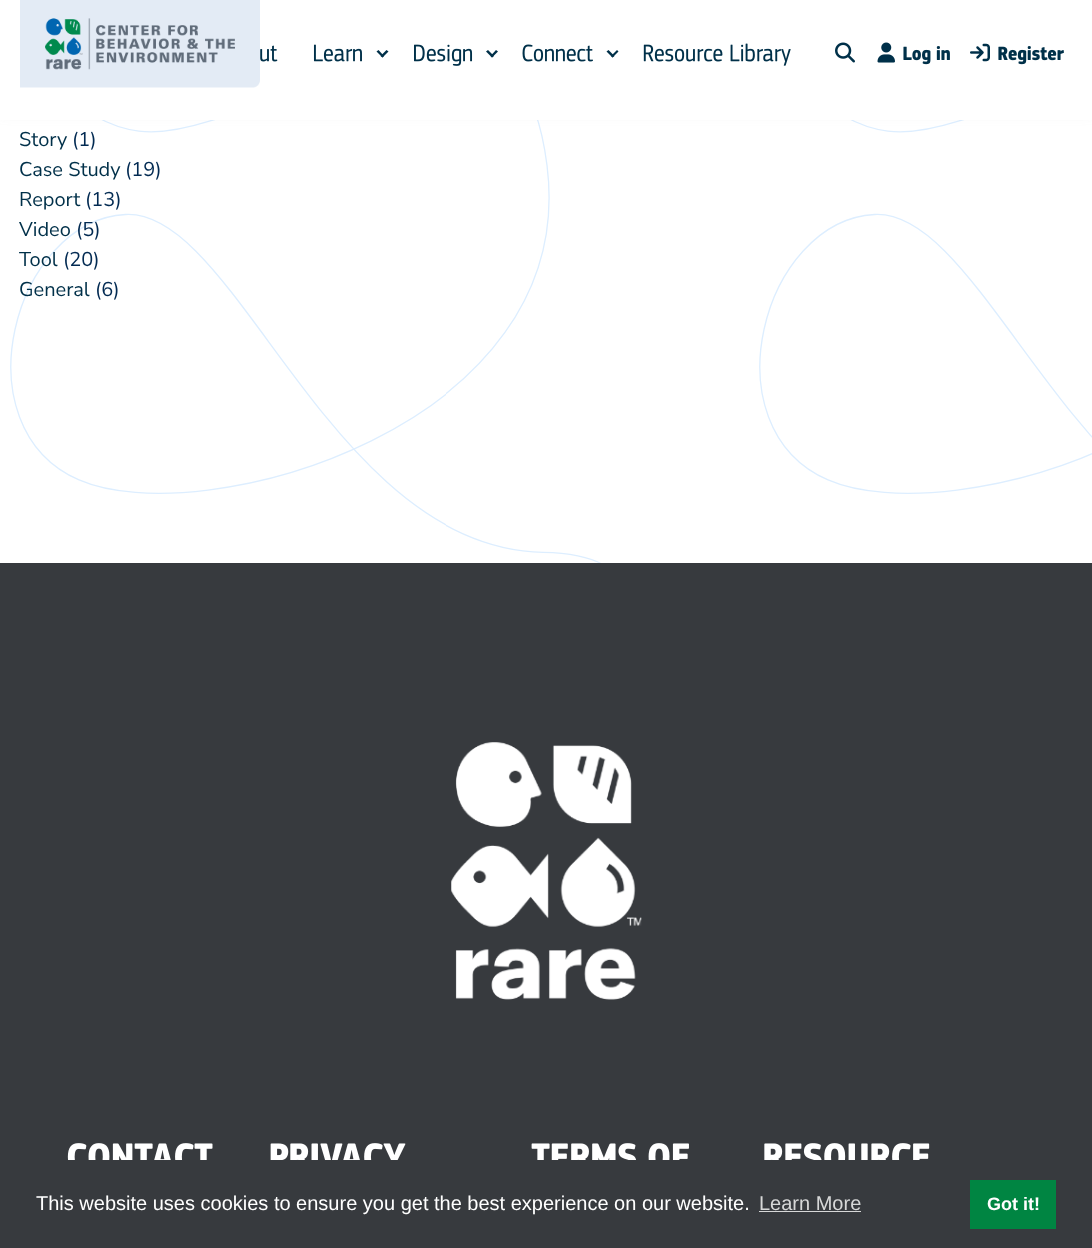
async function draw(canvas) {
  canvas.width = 1092
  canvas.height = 1248
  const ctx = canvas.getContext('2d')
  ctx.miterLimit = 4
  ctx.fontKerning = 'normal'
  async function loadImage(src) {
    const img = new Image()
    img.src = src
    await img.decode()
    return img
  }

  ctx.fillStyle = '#fff'
  ctx.fillRect(0, 0, 1092, 1248)
  ctx.drawImage(await loadImage('image0.png'), 10, 120, 1082, 443)
  ctx.fillStyle = '#84848426'
  ctx.filter = 'blur(6px)'
  ctx.beginPath()
  ctx.rect(0, 6, 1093, 108)
  ctx.fill()
  ctx.filter = 'none'
  ctx.fillStyle = '#fff'
  ctx.fillRect(0, 0, 1092, 120)
  ctx.drawImage(await loadImage('image1.png'), 20, 0, 240, 88)
  ctx.drawImage(await loadImage('image2.png'), 260, 45, 18, 17)
  ctx.drawImage(await loadImage('image3.png'), 313, 44, 49, 18)
  ctx.fillStyle = '#003049'
  ctx.beginPath()
  ctx.moveTo(386.5, 50)
  ctx.lineTo(388.5, 51.5)
  ctx.lineTo(382.5, 57.5)
  ctx.lineTo(380.5, 56)
  ctx.closePath()
  ctx.fill()
  ctx.beginPath()
  ctx.moveTo(378.5, 50)
  ctx.lineTo(384, 56)
  ctx.lineTo(382.5, 57.5)
  ctx.lineTo(376.5, 51.5)
  ctx.closePath()
  ctx.fill()
  ctx.drawImage(await loadImage('image4.png'), 414, 44, 59, 22)
  ctx.beginPath()
  ctx.moveTo(496, 50)
  ctx.lineTo(498, 51.5)
  ctx.lineTo(492, 57.5)
  ctx.lineTo(490.5, 56)
  ctx.closePath()
  ctx.fill()
  ctx.beginPath()
  ctx.moveTo(488, 50)
  ctx.lineTo(494, 56)
  ctx.lineTo(492, 57.5)
  ctx.lineTo(486, 51.5)
  ctx.closePath()
  ctx.fill()
  ctx.drawImage(await loadImage('image5.png'), 522, 44, 71, 18)
  ctx.beginPath()
  ctx.moveTo(617, 50)
  ctx.lineTo(618.5, 51.5)
  ctx.lineTo(612.5, 57.5)
  ctx.lineTo(611, 56)
  ctx.closePath()
  ctx.fill()
  ctx.beginPath()
  ctx.moveTo(608.5, 50)
  ctx.lineTo(614.5, 56)
  ctx.lineTo(612.5, 57.5)
  ctx.lineTo(606.5, 51.5)
  ctx.closePath()
  ctx.fill()
  ctx.drawImage(await loadImage('image6.png'), 643, 43, 148, 23)
  ctx.drawImage(await loadImage('image7.png'), 835, 42, 20, 21)
  ctx.drawImage(await loadImage('image8.png'), 877, 42, 18, 21)
  ctx.drawImage(await loadImage('image9.png'), 903, 46, 47, 19)
  ctx.drawImage(await loadImage('image10.png'), 970, 43, 20, 19)
  ctx.drawImage(await loadImage('image11.png'), 998, 46, 66, 19)
  ctx.font = '20px Nunito Sans'
  ctx.fillText('Story', 19, 146)
  ctx.fillStyle = '#022a52'
  ctx.fillText('(1)', 72, 146)
  ctx.fillStyle = '#003049'
  ctx.fillText('Case Study', 19, 176)
  ctx.fillStyle = '#022a52'
  ctx.fillText('(19)', 125, 176)
  ctx.fillStyle = '#003049'
  ctx.fillText('Report', 19, 206)
  ctx.fillStyle = '#022a52'
  ctx.fillText('(13)', 85, 206)
  ctx.fillStyle = '#003049'
  ctx.fillText('Video', 19, 236)
  ctx.fillStyle = '#022a52'
  ctx.fillText('(5)', 76, 236)
  ctx.fillStyle = '#003049'
  ctx.fillText('Tool', 19, 266)
  ctx.fillStyle = '#022a52'
  ctx.fillText('(20)', 63, 266)
  ctx.fillStyle = '#003049'
  ctx.fillText('General', 19, 296)
  ctx.fillStyle = '#022a52'
  ctx.fillText('(6)', 95, 296)
  ctx.fillStyle = '#373a3e'
  ctx.fillRect(0, 563, 1092, 685)
  ctx.drawImage(await loadImage('image12.png'), 451, 742, 191, 258)
  ctx.drawImage(await loadImage('image13.png'), 67, 1143, 146, 17)
  ctx.drawImage(await loadImage('image14.png'), 270, 1143, 136, 17)
  ctx.drawImage(await loadImage('image15.png'), 531, 1143, 158, 17)
  ctx.drawImage(await loadImage('image16.png'), 764, 1143, 166, 17)
  ctx.font = '20px Liberation Sans'
  ctx.fillStyle = '#fff'
  ctx.fillText('This website uses cookies to ensure you get the best experience on our website.', 36, 1210)
  ctx.fillStyle = '#d7d8d8'
  ctx.fillText('Learn More', 759, 1210)
  ctx.fillRect(759, 1211, 102, 1)
  ctx.fillStyle = '#008542'
  ctx.fillRect(970, 1180, 86, 49)
  ctx.font = 'bold 18px Liberation Sans'
  ctx.fillStyle = '#fff'
  ctx.fillText('Got it!', 987, 1210)
}

draw(document.querySelector('canvas'))
